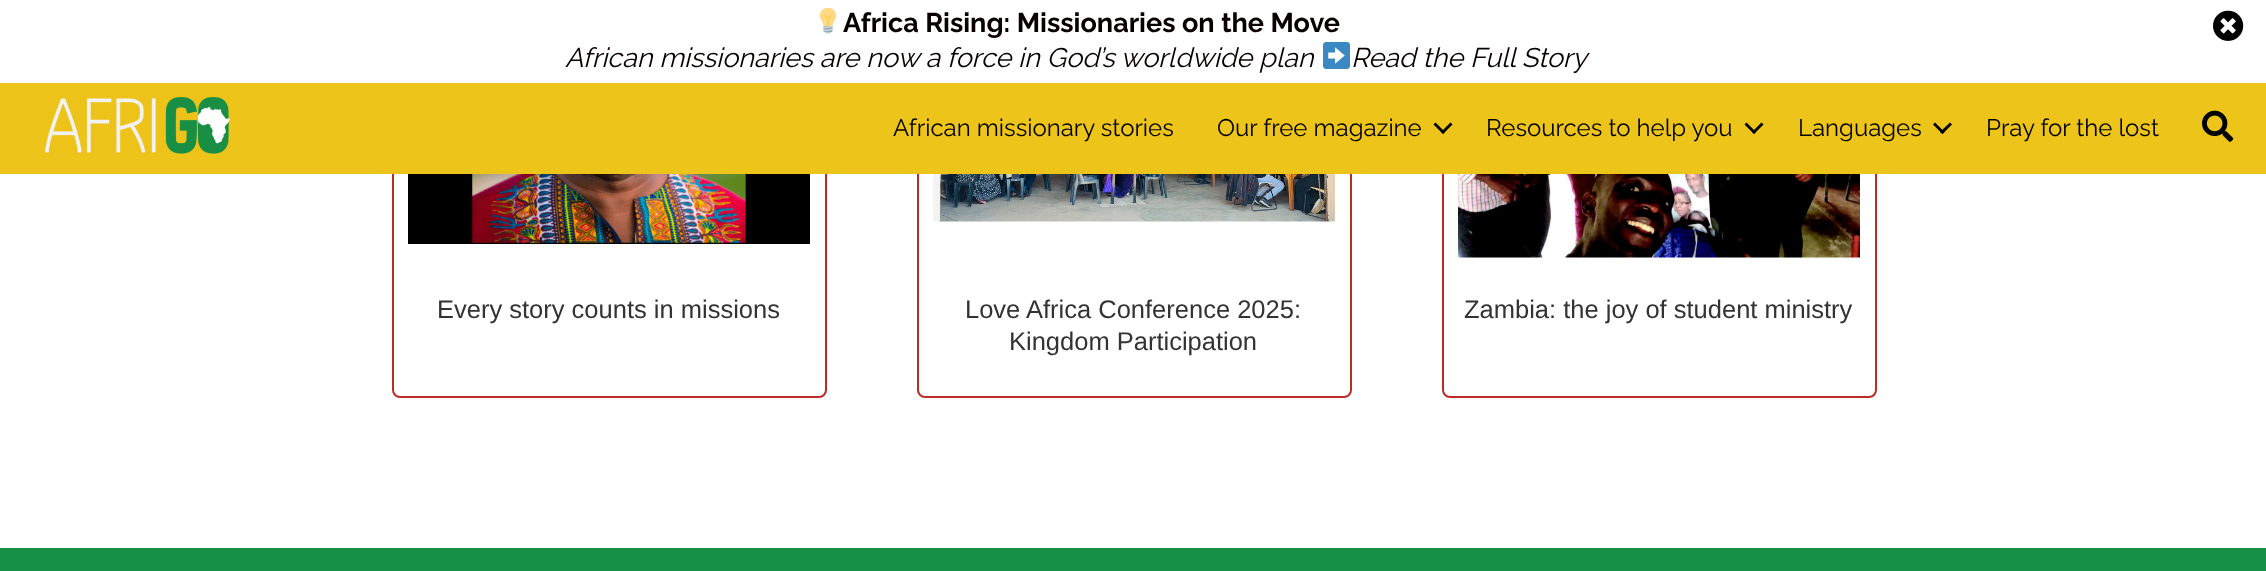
async function draw(canvas) {
  canvas.width = 2266
  canvas.height = 571
  const ctx = canvas.getContext('2d')
  ctx.miterLimit = 4
  ctx.fontKerning = 'normal'
  async function loadImage(src) {
    const img = new Image()
    img.src = src
    await img.decode()
    return img
  }

  ctx.fillStyle = '#fff'
  ctx.fillRect(0, 0, 2266, 571)
  ctx.beginPath()
  ctx.roundRect(393, -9, 433, 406, 7)
  ctx.strokeStyle = '#bc2c26'
  ctx.lineWidth = 2
  ctx.stroke()
  ctx.beginPath()
  ctx.roundRect(918, -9, 433, 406, 7)
  ctx.stroke()
  ctx.beginPath()
  ctx.roundRect(1443, -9, 433, 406, 7)
  ctx.stroke()
  ctx.fillRect(392, 0, 1485, 83)
  ctx.drawImage(await loadImage('image0.png'), 819, 8, 18, 26)
  ctx.font = 'bold 27px Raleway'
  ctx.fillStyle = '#0a0001'
  ctx.fillText('Africa Rising: Missionaries on the Move', 843, 32)
  ctx.font = 'italic 27px Raleway'
  ctx.fillText('African missionaries are now a force in God’s worldwide plan', 565, 67)
  ctx.drawImage(await loadImage('image1.png'), 1323, 42, 27, 27)
  ctx.fillText('Read the Full Story', 1351, 67)
  ctx.drawImage(await loadImage('image2.png'), 2213, 10, 31, 31)
  ctx.fillStyle = '#edc419'
  ctx.fillRect(0, 83, 2266, 91)
  ctx.drawImage(await loadImage('image3.png'), 44, 96, 186, 58)
  ctx.font = '24px Raleway'
  ctx.fillStyle = '#000'
  ctx.fillText('African missionary stories', 893, 136)
  ctx.fillText('Our free magazine', 1217, 136)
  ctx.beginPath()
  ctx.moveTo(1450.5, 122.5)
  ctx.lineTo(1452.5, 124.5)
  ctx.lineTo(1443, 134)
  ctx.lineTo(1441, 132)
  ctx.closePath()
  ctx.fill()
  ctx.beginPath()
  ctx.moveTo(1435.5, 122.5)
  ctx.lineTo(1445, 132)
  ctx.lineTo(1443, 134)
  ctx.lineTo(1433.5, 124.5)
  ctx.closePath()
  ctx.fill()
  ctx.fillText('Resources to help you', 1486, 136)
  ctx.beginPath()
  ctx.moveTo(1761.5, 122.5)
  ctx.lineTo(1763.5, 124.5)
  ctx.lineTo(1754, 134)
  ctx.lineTo(1752, 132)
  ctx.closePath()
  ctx.fill()
  ctx.beginPath()
  ctx.moveTo(1746.5, 122.5)
  ctx.lineTo(1756, 132)
  ctx.lineTo(1754, 134)
  ctx.lineTo(1744.5, 124.5)
  ctx.closePath()
  ctx.fill()
  ctx.fillText('Languages', 1798, 136)
  ctx.beginPath()
  ctx.moveTo(1950, 122.5)
  ctx.lineTo(1952, 124.5)
  ctx.lineTo(1942.5, 134)
  ctx.lineTo(1940, 132)
  ctx.closePath()
  ctx.fill()
  ctx.beginPath()
  ctx.moveTo(1935, 122.5)
  ctx.lineTo(1944.5, 132)
  ctx.lineTo(1942.5, 134)
  ctx.lineTo(1933, 124.5)
  ctx.closePath()
  ctx.fill()
  ctx.fillText('Pray for the lost', 1986, 136)
  ctx.drawImage(await loadImage('image4.png'), 2202, 110, 32, 32)
  ctx.drawImage(await loadImage('image5.png'), 408, 174, 402, 70)
  ctx.font = '25.5px Liberation Sans'
  ctx.fillStyle = '#333'
  ctx.fillText('Every story counts in missions', 437, 318)
  ctx.drawImage(await loadImage('image6.png'), 933, 174, 402, 48)
  ctx.fillText('Love Africa Conference 2025:', 965, 318)
  ctx.fillText('Kingdom Participation', 1009, 350)
  ctx.drawImage(await loadImage('image7.png'), 1458, 174, 402, 84)
  ctx.fillText('Zambia: the joy of student ministry', 1464, 318)
  ctx.fillStyle = '#159044'
  ctx.fillRect(0, 548, 2266, 23)
}

draw(document.querySelector('canvas'))
